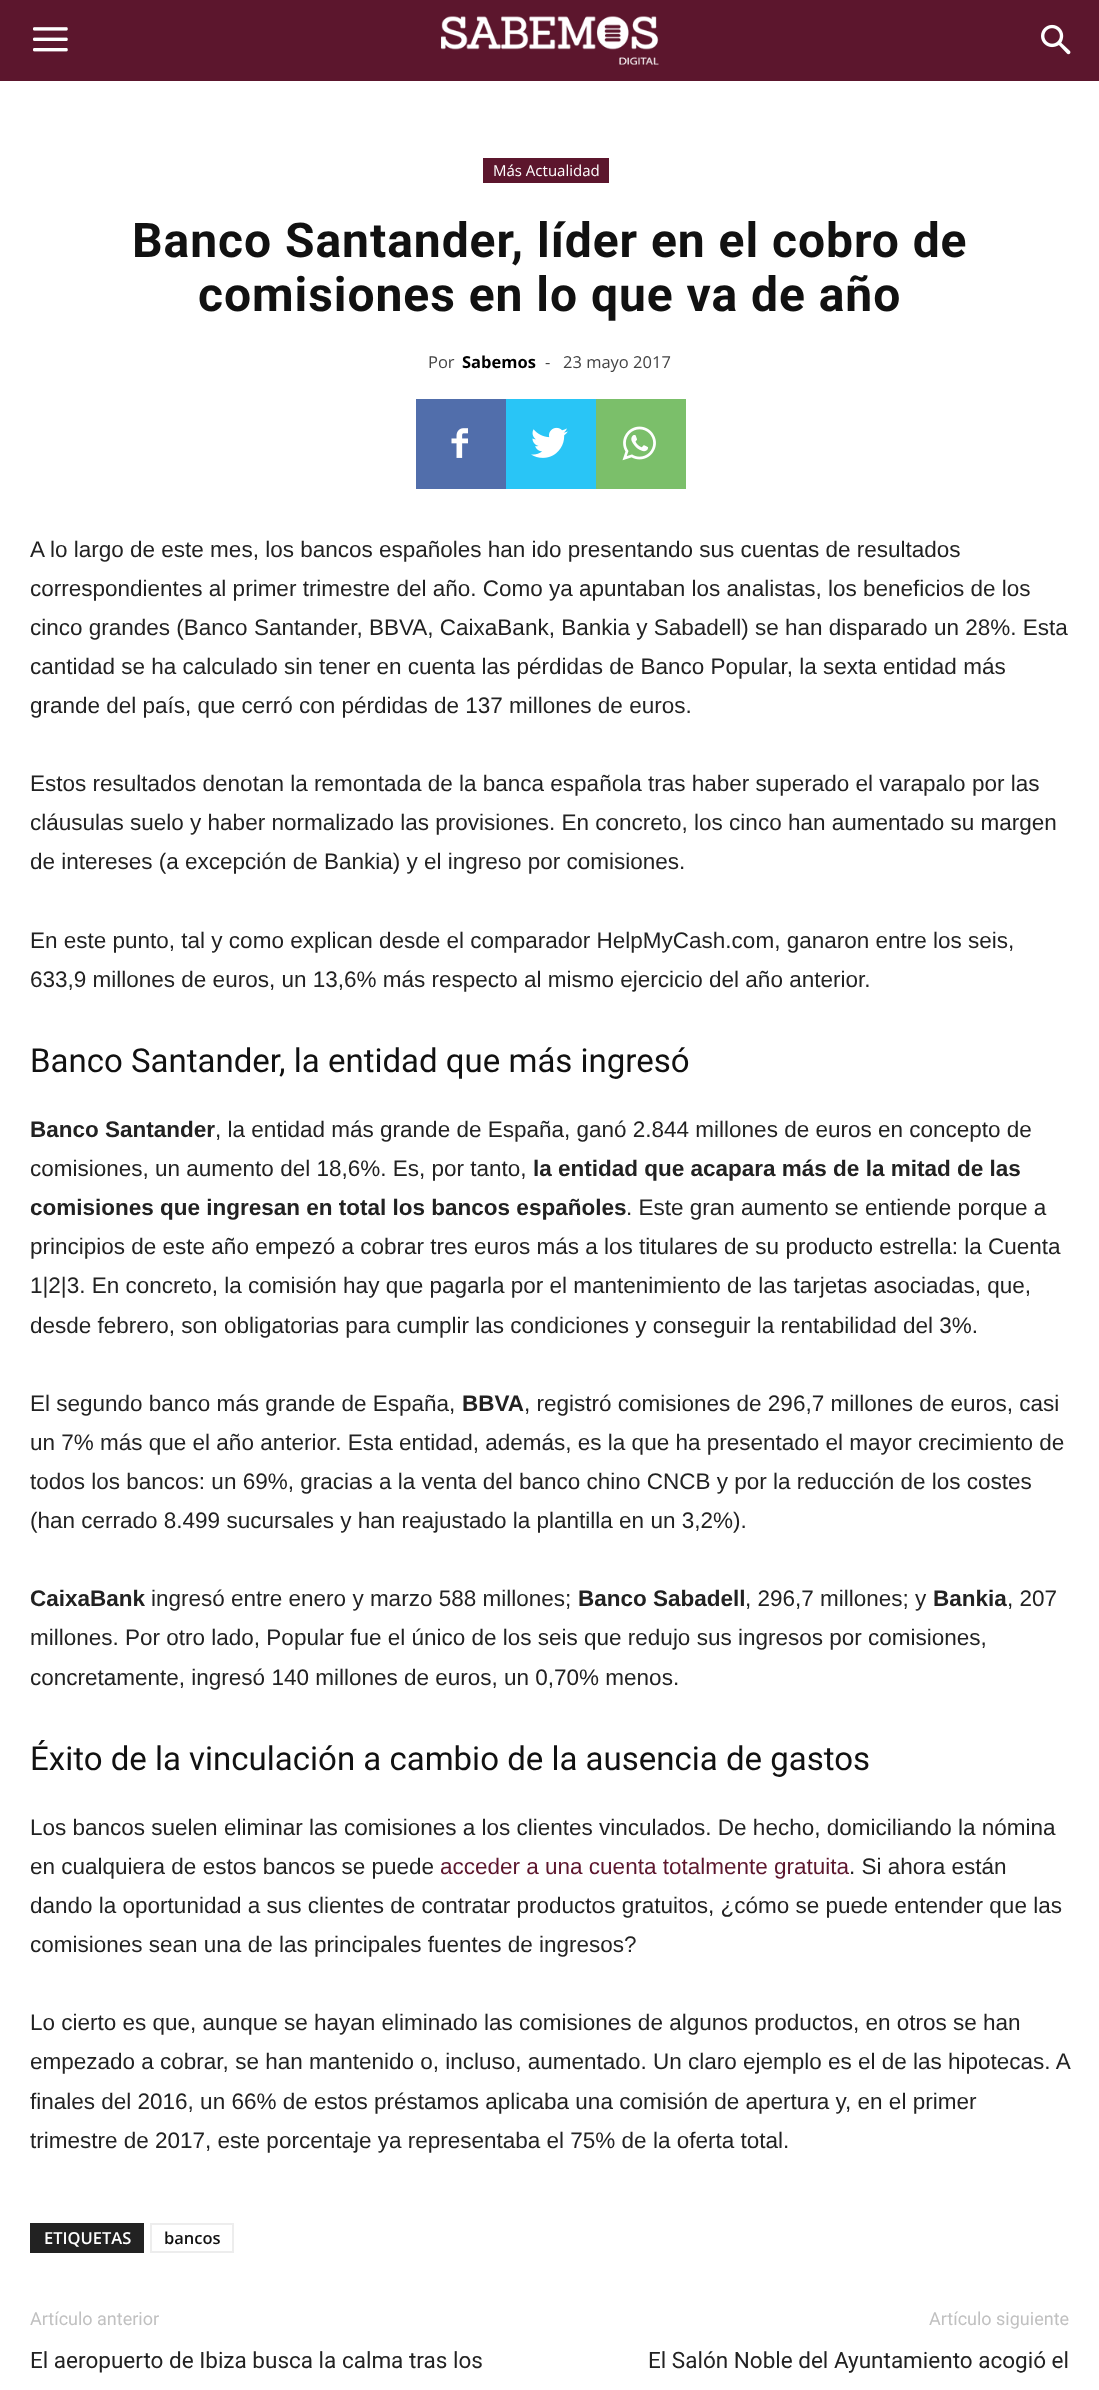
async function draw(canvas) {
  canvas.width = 1099
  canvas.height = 2390
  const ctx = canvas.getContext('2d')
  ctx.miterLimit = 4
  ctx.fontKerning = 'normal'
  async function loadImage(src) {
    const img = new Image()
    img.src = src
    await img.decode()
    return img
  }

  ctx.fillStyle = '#fff'
  ctx.fillRect(0, 0, 1099, 2390)
  ctx.fillStyle = '#5c162d'
  ctx.fillRect(0, 0, 1099, 81)
  ctx.drawImage(await loadImage('image0.png'), 33, 27, 35, 25)
  ctx.drawImage(await loadImage('image1.png'), 441, 16, 218, 49)
  ctx.drawImage(await loadImage('image2.png'), 1041, 24, 30, 31)
  ctx.fillRect(483, 158, 126, 25)
  ctx.font = '15px Open Sans'
  ctx.fillStyle = '#fff'
  ctx.fillText('Más Actualidad', 493, 176)
  ctx.letterSpacing = '0.95px'
  ctx.font = 'bold 48px Roboto'
  ctx.fillStyle = '#111'
  ctx.fillText('Banco Santander, líder en el cobro de', 132, 257)
  ctx.fillText('comisiones en lo que va de año', 198, 311)
  ctx.letterSpacing = '0px'
  ctx.font = '16.5px Open Sans'
  ctx.fillStyle = '#444'
  ctx.fillText('Por', 428, 368)
  ctx.font = 'bold 16.5px Open Sans'
  ctx.fillStyle = '#000'
  ctx.fillText('Sabemos', 462, 368)
  ctx.font = '16.5px Open Sans'
  ctx.fillStyle = '#444'
  ctx.fillText('-', 545, 368)
  ctx.fillText('23 mayo 2017', 563, 368)
  ctx.fillStyle = '#516eab'
  ctx.fillRect(416, 399, 90, 90)
  ctx.drawImage(await loadImage('image3.png'), 451, 428, 17, 30)
  ctx.fillStyle = '#29c5f6'
  ctx.fillRect(506, 399, 90, 90)
  ctx.drawImage(await loadImage('image4.png'), 531, 427, 37, 31)
  ctx.fillStyle = '#7bbf6a'
  ctx.fillRect(596, 399, 90, 90)
  ctx.drawImage(await loadImage('image5.png'), 622, 426, 34, 35)
  ctx.font = '22.5px Liberation Sans'
  ctx.fillStyle = '#222'
  ctx.fillText('A lo largo de este mes, los bancos españoles han ido presentando sus cuentas de resultados', 30, 557)
  ctx.fillText('correspondientes al primer trimestre del año. Como ya apuntaban los analistas, los beneficios de los', 30, 596)
  ctx.fillText('cinco grandes (Banco Santander, BBVA, CaixaBank, Bankia y Sabadell) se han disparado un 28%. Esta', 30, 635)
  ctx.fillText('cantidad se ha calculado sin tener en cuenta las pérdidas de Banco Popular, la sexta entidad más', 30, 674)
  ctx.fillText('grande del país, que cerró con pérdidas de 137 millones de euros.', 30, 713)
  ctx.fillText('Estos resultados denotan la remontada de la banca española tras haber superado el varapalo por las', 30, 791)
  ctx.fillText('cláusulas suelo y haber normalizado las provisiones. En concreto, los cinco han aumentado su margen', 30, 830)
  ctx.fillText('de intereses (a excepción de Bankia) y el ingreso por comisiones.', 30, 869)
  ctx.fillText('En este punto, tal y como explican desde el comparador HelpMyCash.com, ganaron entre los seis,', 30, 948)
  ctx.fillText('633,9 millones de euros, un 13,6% más respecto al mismo ejercicio del año anterior.', 30, 987)
  ctx.font = '33px Roboto'
  ctx.fillStyle = '#111'
  ctx.fillText('Banco Santander, la entidad que más ingresó', 30, 1072)
  ctx.font = 'bold 22.5px Liberation Sans'
  ctx.fillStyle = '#222'
  ctx.fillText('Banco Santander', 30, 1137)
  ctx.font = '22.5px Liberation Sans'
  ctx.fillText(', la entidad más grande de España, ganó 2.844 millones de euros en concepto de', 215, 1137)
  ctx.fillText('comisiones, un aumento del 18,6%. Es, por tanto,', 30, 1176)
  ctx.font = 'bold 22.5px Liberation Sans'
  ctx.fillText('la entidad que acapara más de la mitad de las', 533, 1176)
  ctx.fillText('comisiones que ingresan en total los bancos españoles', 30, 1215)
  ctx.font = '22.5px Liberation Sans'
  ctx.fillText('. Este gran aumento se entiende porque a', 626, 1215)
  ctx.fillText('principios de este año empezó a cobrar tres euros más a los titulares de su producto estrella: la Cuenta', 30, 1254)
  ctx.fillText('1|2|3. En concreto, la comisión hay que pagarla por el mantenimiento de las tarjetas asociadas, que,', 30, 1293)
  ctx.fillText('desde febrero, son obligatorias para cumplir las condiciones y conseguir la rentabilidad del 3%.', 30, 1333)
  ctx.fillText('El segundo banco más grande de España,', 30, 1411)
  ctx.font = 'bold 22.5px Liberation Sans'
  ctx.fillText('BBVA', 462, 1411)
  ctx.font = '22.5px Liberation Sans'
  ctx.fillText(', registró comisiones de 296,7 millones de euros, casi', 524, 1411)
  ctx.fillText('un 7% más que el año anterior. Esta entidad, además, es la que ha presentado el mayor crecimiento de', 30, 1450)
  ctx.fillText('todos los bancos: un 69%, gracias a la venta del banco chino CNCB y por la reducción de los costes', 30, 1489)
  ctx.fillText('(han cerrado 8.499 sucursales y han reajustado la plantilla en un 3,2%).', 30, 1528)
  ctx.font = 'bold 22.5px Liberation Sans'
  ctx.fillText('CaixaBank', 30, 1606)
  ctx.font = '22.5px Liberation Sans'
  ctx.fillText('ingresó entre enero y marzo 588 millones;', 151, 1606)
  ctx.font = 'bold 22.5px Liberation Sans'
  ctx.fillText('Banco Sabadell', 578, 1606)
  ctx.font = '22.5px Liberation Sans'
  ctx.fillText(', 296,7 millones; y', 745, 1606)
  ctx.font = 'bold 22.5px Liberation Sans'
  ctx.fillText('Bankia', 933, 1606)
  ctx.font = '22.5px Liberation Sans'
  ctx.fillText(', 207', 1007, 1606)
  ctx.fillText('millones. Por otro lado, Popular fue el único de los seis que redujo sus ingresos por comisiones,', 30, 1645)
  ctx.fillText('concretamente, ingresó 140 millones de euros, un 0,70% menos.', 30, 1685)
  ctx.font = '33px Roboto'
  ctx.fillStyle = '#111'
  ctx.fillText('Éxito de la vinculación a cambio de la ausencia de gastos', 30, 1770)
  ctx.font = '22.5px Liberation Sans'
  ctx.fillStyle = '#222'
  ctx.fillText('Los bancos suelen eliminar las comisiones a los clientes vinculados. De hecho, domiciliando la nómina', 30, 1835)
  ctx.fillText('en cualquiera de estos bancos se puede', 30, 1874)
  ctx.fillStyle = '#5c162d'
  ctx.fillText('acceder a una cuenta totalmente gratuita', 440, 1874)
  ctx.fillStyle = '#222'
  ctx.fillText('. Si ahora están', 849, 1874)
  ctx.fillText('dando la oportunidad a sus clientes de contratar productos gratuitos, ¿cómo se puede entender que las', 30, 1913)
  ctx.fillText('comisiones sean una de las principales fuentes de ingresos?', 30, 1952)
  ctx.fillText('Lo cierto es que, aunque se hayan eliminado las comisiones de algunos productos, en otros se han', 30, 2030)
  ctx.fillText('empezado a cobrar, se han mantenido o, incluso, aumentado. Un claro ejemplo es el de las hipotecas. A', 30, 2069)
  ctx.fillText('finales del 2016, un 66% de estos préstamos aplicaba una comisión de apertura y, en el primer', 30, 2109)
  ctx.fillText('trimestre de 2017, este porcentaje ya representaba el 75% de la oferta total.', 30, 2148)
  ctx.fillRect(30, 2223, 114, 30)
  ctx.font = '600 16.5px Open Sans'
  ctx.fillStyle = '#fff'
  ctx.fillText('ETIQUETAS', 44, 2244)
  ctx.strokeStyle = '#ededed'
  ctx.lineWidth = 2
  ctx.strokeRect(151, 2224, 82, 28)
  ctx.fillStyle = '#111'
  ctx.fillText('bancos', 164, 2244)
  ctx.font = '18px Roboto'
  ctx.fillStyle = '#c1c1c1'
  ctx.fillText('Artículo anterior', 30, 2325)
  ctx.font = '22.5px Roboto'
  ctx.fillStyle = '#222'
  ctx.fillText('El aeropuerto de Ibiza busca la calma tras los', 30, 2368)
  ctx.font = '18px Roboto'
  ctx.fillStyle = '#c1c1c1'
  ctx.fillText('Artículo siguiente', 929, 2325)
  ctx.font = '22.5px Roboto'
  ctx.fillStyle = '#222'
  ctx.fillText('El Salón Noble del Ayuntamiento acogió el', 648, 2368)
}

draw(document.querySelector('canvas'))
